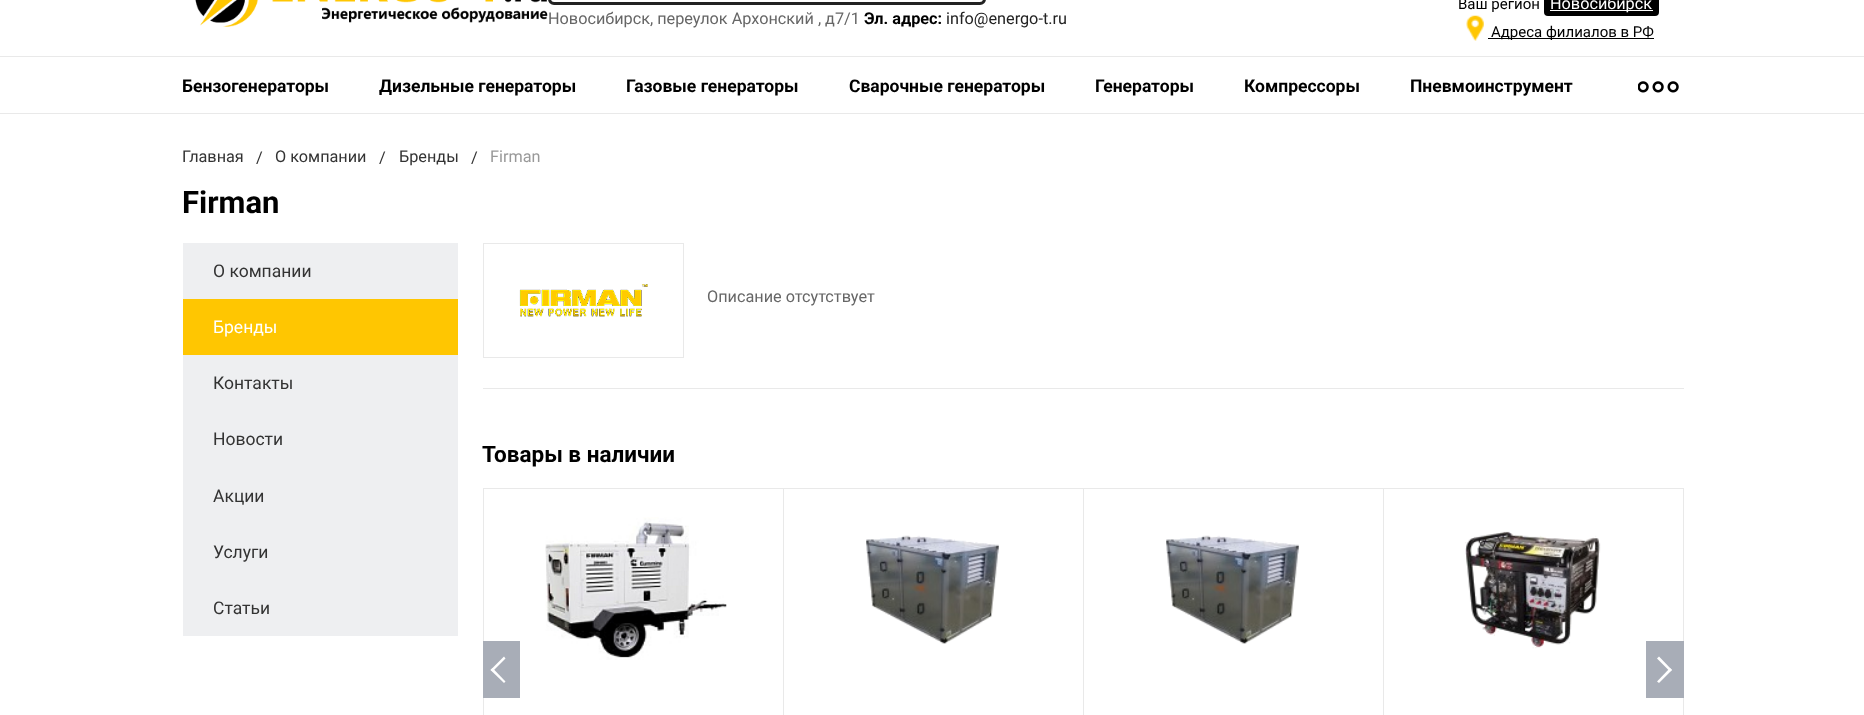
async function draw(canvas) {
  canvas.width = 1864
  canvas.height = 715
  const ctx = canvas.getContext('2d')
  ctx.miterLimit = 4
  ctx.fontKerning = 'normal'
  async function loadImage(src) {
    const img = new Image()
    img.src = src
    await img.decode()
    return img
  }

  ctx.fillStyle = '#fff'
  ctx.fillRect(0, 0, 1864, 715)
  ctx.drawImage(await loadImage('image0.png'), 195, 0, 353, 27)
  ctx.beginPath()
  ctx.roundRect(549.5, -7.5, 435, 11, 4.5)
  ctx.strokeStyle = '#222'
  ctx.lineWidth = 3
  ctx.stroke()
  ctx.font = '16.25px Roboto'
  ctx.fillStyle = '#666'
  ctx.fillText('Новосибирск, переулок Архонский , д7/1', 548, 24)
  ctx.font = 'bold 16.25px Roboto'
  ctx.fillStyle = '#000'
  ctx.fillText('Эл. адрес:', 864, 24)
  ctx.font = '16.25px Roboto'
  ctx.fillStyle = '#222'
  ctx.fillText('info@energo-t.ru', 946, 24)
  ctx.font = '15px Roboto'
  ctx.fillStyle = '#000'
  ctx.fillText('Ваш регион', 1458, 9)
  ctx.beginPath()
  ctx.roundRect(1544, -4, 115, 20, 4)
  ctx.fill()
  ctx.fillStyle = '#fff'
  ctx.fillRect(1550, 10, 103, 1)
  ctx.font = '16.25px Roboto'
  ctx.fillText('Новосибирск', 1550, 9)
  ctx.drawImage(await loadImage('image1.png'), 1466, 15, 18, 26)
  ctx.fillStyle = '#000'
  ctx.fillRect(1488, 38, 166, 1)
  ctx.font = '15px Roboto'
  ctx.fillText('Адреса филиалов в РФ', 1491, 37)
  ctx.fillStyle = '#e9e9e9'
  ctx.fillRect(0, 56, 1864, 1)
  ctx.fillRect(0, 113, 1864, 1)
  ctx.font = 'bold 17.5px Roboto'
  ctx.fillStyle = '#000'
  ctx.fillText('Бензогенераторы', 182, 92)
  ctx.fillText('Дизельные генераторы', 379, 92)
  ctx.fillText('Газовые генераторы', 626, 92)
  ctx.fillText('Сварочные генераторы', 849, 92)
  ctx.fillText('Генераторы', 1095, 92)
  ctx.fillText('Компрессоры', 1244, 92)
  ctx.fillText('Пневмоинструмент', 1410, 92)
  ctx.drawImage(await loadImage('image2.png'), 1638, 81, 41, 12)
  ctx.font = '16.25px Roboto'
  ctx.fillStyle = '#333'
  ctx.fillText('Главная', 182, 162)
  ctx.fillText('/', 256, 163)
  ctx.fillText('О компании', 275, 162)
  ctx.fillText('/', 379, 163)
  ctx.fillText('Бренды', 399, 162)
  ctx.fillText('/', 471, 163)
  ctx.fillStyle = '#999'
  ctx.fillText('Firman', 490, 162)
  ctx.font = 'bold 31px Roboto'
  ctx.fillStyle = '#000'
  ctx.fillText('Firman', 182, 213)
  ctx.fillStyle = '#eeeff1'
  ctx.fillRect(183, 243, 275, 393)
  ctx.font = '17.5px Roboto'
  ctx.fillStyle = '#333'
  ctx.fillText('О компании', 213, 277)
  ctx.fillStyle = '#ffc601'
  ctx.fillRect(183, 299, 275, 56)
  ctx.fillStyle = '#fff'
  ctx.fillText('Бренды', 213, 333)
  ctx.fillStyle = '#333'
  ctx.fillText('Контакты', 213, 389)
  ctx.fillText('Новости', 213, 445)
  ctx.fillText('Акции', 213, 502)
  ctx.fillText('Услуги', 213, 558)
  ctx.fillText('Статьи', 213, 614)
  ctx.fillStyle = '#e9e9e9'
  ctx.fillRect(483, 388, 1201, 1)
  ctx.strokeStyle = '#e9e9e9'
  ctx.lineWidth = 1
  ctx.strokeRect(483.5, 243.5, 200, 114)
  ctx.drawImage(await loadImage('image3.png'), 519, 284, 129, 33)
  ctx.font = '16.25px Roboto'
  ctx.fillStyle = '#666'
  ctx.fillText('Описание отсутствует', 707, 302)
  ctx.font = 'bold 22.5px Roboto'
  ctx.fillStyle = '#000'
  ctx.fillText('Товары в наличии', 482, 462)
  ctx.strokeRect(483.5, 488.5, 300, 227)
  ctx.drawImage(await loadImage('image4.png'), 545, 517, 182, 143)
  ctx.strokeRect(783.5, 488.5, 300, 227)
  ctx.drawImage(await loadImage('image5.png'), 866, 535, 133, 109)
  ctx.strokeRect(1083.5, 488.5, 300, 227)
  ctx.drawImage(await loadImage('image5.png'), 1166, 535, 133, 109)
  ctx.strokeRect(1383.5, 488.5, 300, 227)
  ctx.drawImage(await loadImage('image6.png'), 1465, 531, 136, 118)
  ctx.fillStyle = '#a8adb7'
  ctx.fillRect(483, 641, 37, 57)
  ctx.fillStyle = '#fff'
  ctx.beginPath()
  ctx.moveTo(490.5, 670)
  ctx.lineTo(504, 656.5)
  ctx.lineTo(505.5, 658.5)
  ctx.lineTo(492.5, 671.5)
  ctx.closePath()
  ctx.fill()
  ctx.beginPath()
  ctx.moveTo(490.5, 670)
  ctx.lineTo(492.5, 668)
  ctx.lineTo(505.5, 681.5)
  ctx.lineTo(504, 683)
  ctx.closePath()
  ctx.fill()
  ctx.fillStyle = '#a8adb7'
  ctx.fillRect(1646, 641, 38, 57)
  ctx.fillStyle = '#fff'
  ctx.beginPath()
  ctx.moveTo(1659, 656.5)
  ctx.lineTo(1672, 670)
  ctx.lineTo(1670, 671.5)
  ctx.lineTo(1657, 658.5)
  ctx.closePath()
  ctx.fill()
  ctx.beginPath()
  ctx.moveTo(1670, 668)
  ctx.lineTo(1672, 670)
  ctx.lineTo(1659, 683)
  ctx.lineTo(1657, 681.5)
  ctx.closePath()
  ctx.fill()
}

draw(document.querySelector('canvas'))
